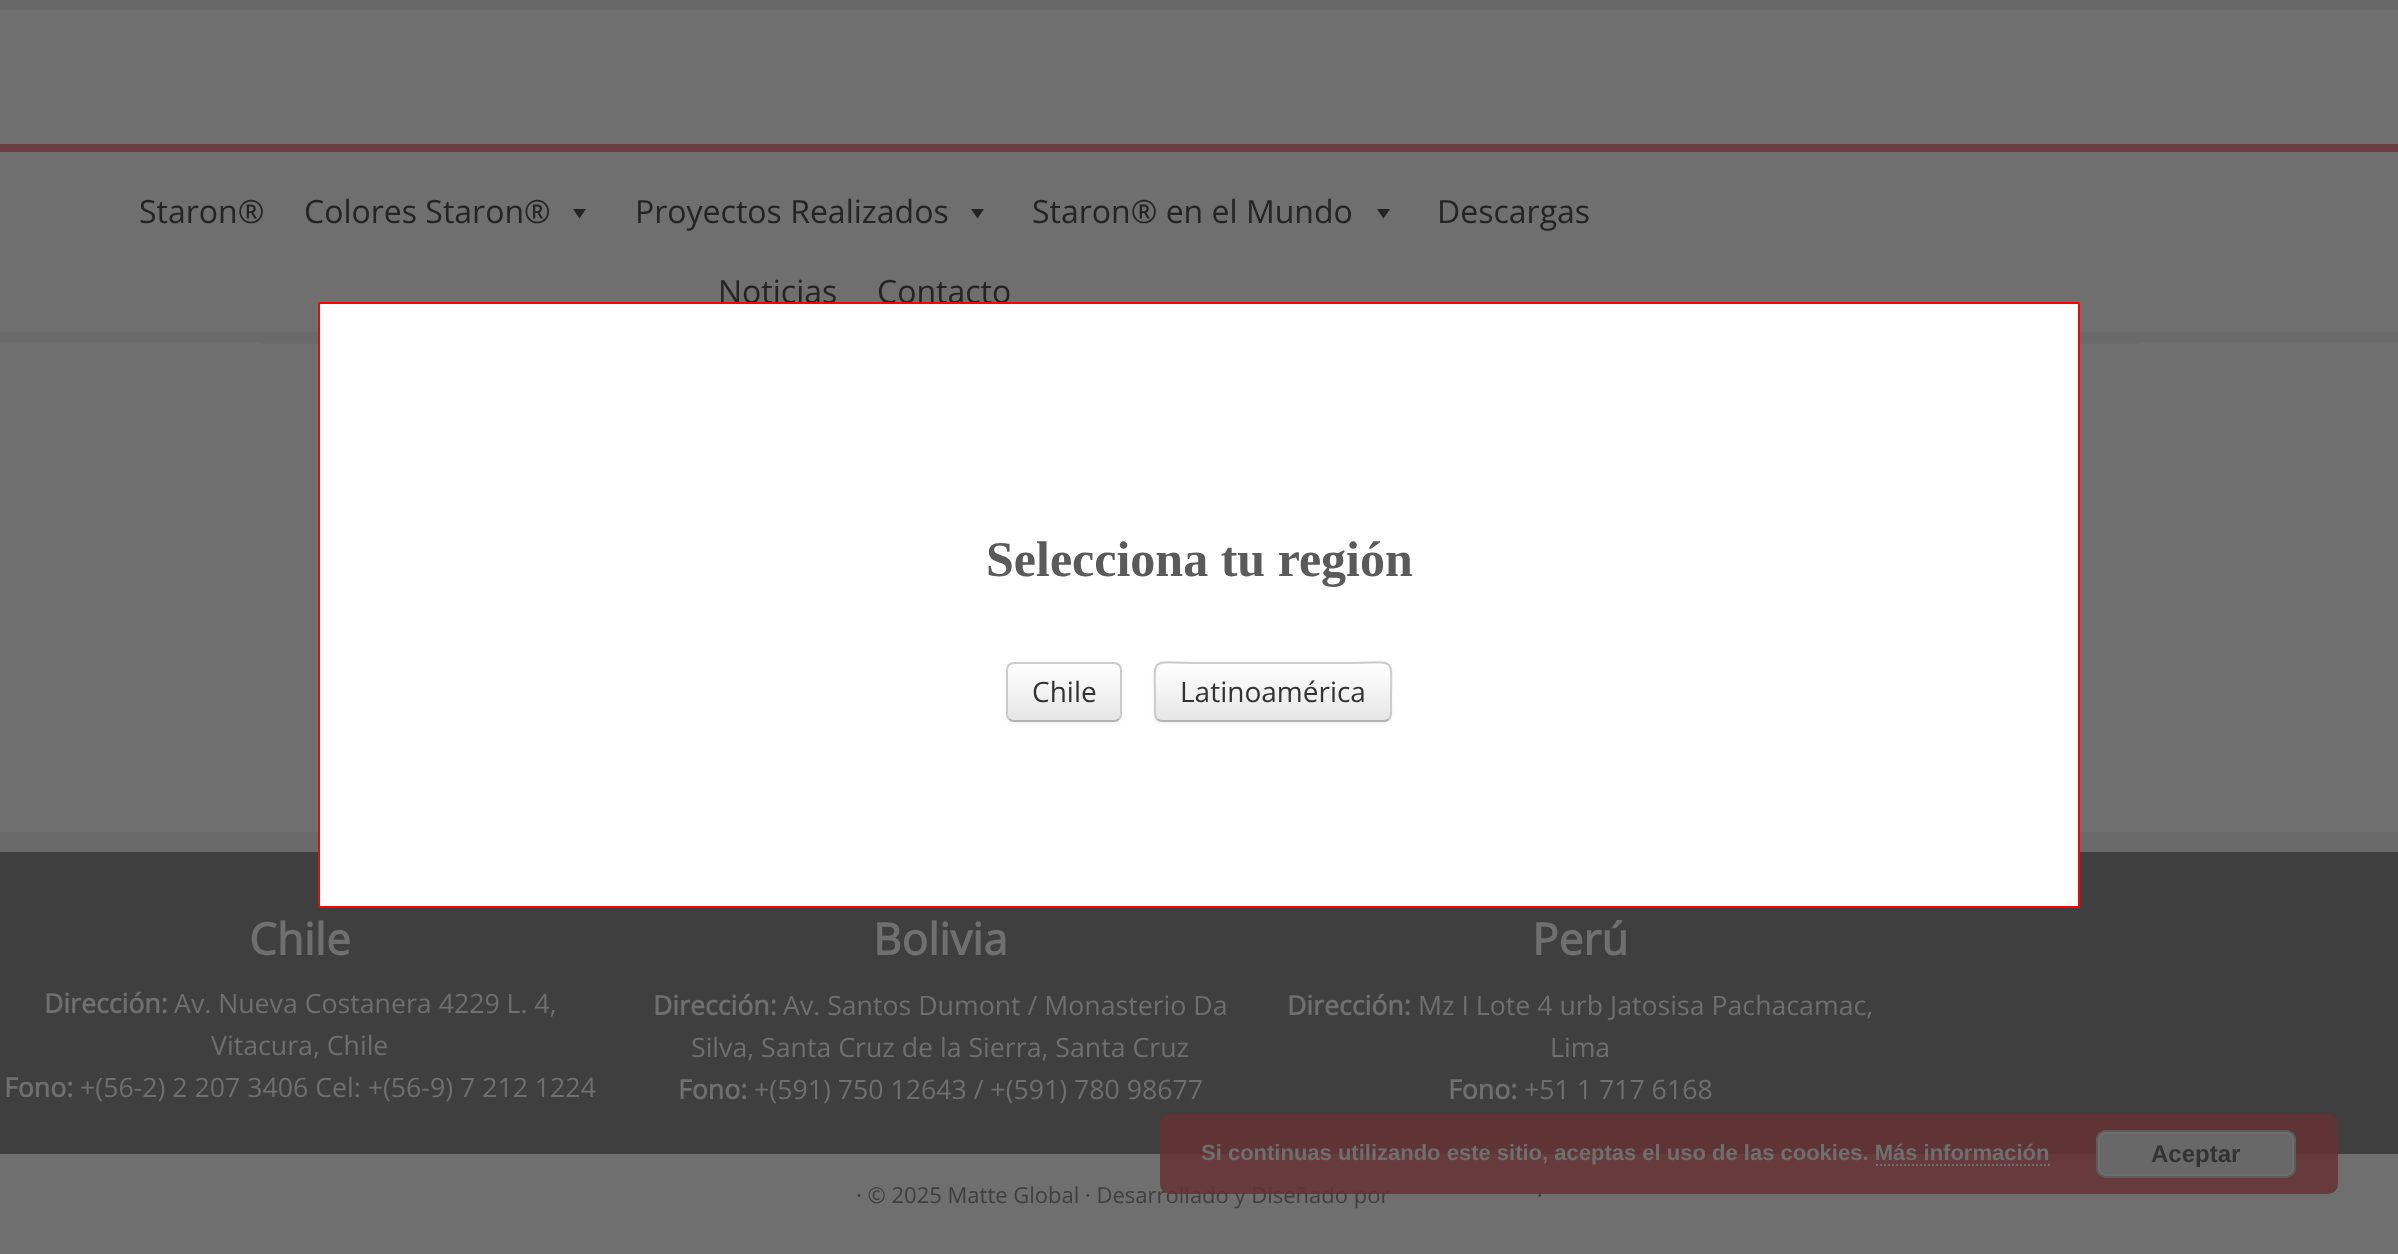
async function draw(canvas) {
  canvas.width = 2398
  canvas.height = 1254
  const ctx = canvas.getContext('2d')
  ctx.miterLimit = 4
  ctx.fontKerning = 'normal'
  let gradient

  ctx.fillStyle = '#6f6f6f'
  ctx.fillRect(0, 0, 2398, 1254)
  ctx.fillStyle = '#686868'
  ctx.fillRect(0, 0, 2398, 10)
  ctx.fillStyle = '#6a6a6b'
  ctx.fillRect(0, 332, 2398, 10)
  ctx.fillStyle = '#6b3d43'
  ctx.fillRect(0, 144, 2398, 8)
  ctx.font = '32px Open Sans'
  ctx.fillStyle = '#242424'
  ctx.fillText('Staron®', 139, 223)
  ctx.fillText('Colores Staron®', 304, 223)
  ctx.beginPath()
  ctx.moveTo(586, 209)
  ctx.lineTo(579.5, 218.5)
  ctx.lineTo(573, 209)
  ctx.closePath()
  ctx.fill()
  ctx.fillText('Proyectos Realizados', 635, 223)
  ctx.beginPath()
  ctx.moveTo(984, 209)
  ctx.lineTo(977.5, 218.5)
  ctx.lineTo(971, 209)
  ctx.closePath()
  ctx.fill()
  ctx.fillText('Staron® en el Mundo', 1032, 223)
  ctx.beginPath()
  ctx.moveTo(1390, 209)
  ctx.lineTo(1383.5, 218.5)
  ctx.lineTo(1377, 209)
  ctx.closePath()
  ctx.fill()
  ctx.fillText('Descargas', 1437, 223)
  ctx.fillText('Noticias', 718, 303)
  ctx.fillText('Contacto', 877, 303)
  ctx.fillStyle = '#6b6b6b'
  ctx.fillRect(260, 342, 1880, 2)
  ctx.fillStyle = '#3f3f3f'
  ctx.fillRect(0, 852, 2398, 302)
  ctx.fillStyle = '#6a6a6b'
  ctx.fillRect(0, 832, 2398, 20)
  ctx.font = 'bold 44px Open Sans'
  ctx.fillStyle = '#6f6f6f'
  ctx.fillText('Chile', 249, 955)
  ctx.font = 'bold 26.7px Open Sans'
  ctx.fillText('Dirección:', 44, 1013)
  ctx.font = '26.7px Open Sans'
  ctx.fillText('Av. Nueva Costanera 4229 L. 4,', 174, 1013)
  ctx.fillText('Vitacura, Chile', 211, 1055)
  ctx.font = 'bold 26.7px Open Sans'
  ctx.fillText('Fono:', 4, 1097)
  ctx.font = '26.7px Open Sans'
  ctx.fillText('+(56-2) 2 207 3406 Cel: +(56-9) 7 212 1224', 80, 1097)
  ctx.font = 'bold 44px Open Sans'
  ctx.fillText('Bolivia', 873, 955)
  ctx.font = 'bold 26.7px Open Sans'
  ctx.fillText('Dirección:', 653, 1015)
  ctx.font = '26.7px Open Sans'
  ctx.fillText('Av. Santos Dumont / Monasterio Da', 783, 1015)
  ctx.fillText('Silva, Santa Cruz de la Sierra, Santa Cruz', 691, 1057)
  ctx.font = 'bold 26.7px Open Sans'
  ctx.fillText('Fono:', 678, 1099)
  ctx.font = '26.7px Open Sans'
  ctx.fillText('+(591) 750 12643 / +(591) 780 98677', 754, 1099)
  ctx.font = 'bold 44px Open Sans'
  ctx.fillText('Perú', 1532, 955)
  ctx.font = 'bold 26.7px Open Sans'
  ctx.fillText('Dirección:', 1287, 1015)
  ctx.font = '26.7px Open Sans'
  ctx.fillText('Mz I Lote 4 urb Jatosisa Pachacamac,', 1418, 1015)
  ctx.fillText('Lima', 1550, 1057)
  ctx.font = 'bold 26.7px Open Sans'
  ctx.fillText('Fono:', 1448, 1099)
  ctx.font = '26.7px Open Sans'
  ctx.fillText('+51 1 717 6168', 1524, 1099)
  ctx.font = '22px Open Sans'
  ctx.fillStyle = '#3f3f3f'
  ctx.fillText('· © 2025 Matte Global · Desarrollado y Diseñado por', 856, 1203)
  ctx.fillText('·', 1537, 1203)
  ctx.fillStyle = '#fff'
  ctx.beginPath()
  ctx.roundRect(319, 303, 1760, 604, 1)
  ctx.fill()
  ctx.strokeStyle = '#f00'
  ctx.lineWidth = 2
  ctx.stroke()
  ctx.font = 'bold 50px Liberation Serif'
  ctx.fillStyle = '#5a5a5a'
  ctx.fillText('Selecciona tu región', 986, 576)
  ctx.fillStyle = '#0000000d'
  ctx.filter = 'blur(2px)'
  ctx.beginPath()
  ctx.roundRect(1006, 664, 116, 60, 8)
  ctx.fill()
  ctx.filter = 'none'
  ctx.save()
  ctx.beginPath()
  ctx.roundRect(1006, 662, 116, 60, 8)
  ctx.clip()
  gradient = ctx.createLinearGradient(1064, 664, 1064, 720)
  gradient.addColorStop(0, '#fff')
  gradient.addColorStop(1, '#e6e6e6')
  ctx.fillStyle = gradient
  ctx.fillRect(1006, 664, 116, 56)
  ctx.restore()
  ctx.beginPath()
  ctx.moveTo(1119, 719)
  ctx.bezierCurveTo(1117.5, 720.5, 1116, 721, 1114, 721)
  ctx.lineTo(1014, 721)
  ctx.bezierCurveTo(1012, 721, 1010.5, 720.5, 1009, 719)
  ctx.strokeStyle = '#b3b3b3'
  ctx.stroke()
  ctx.beginPath()
  ctx.moveTo(1009, 719)
  ctx.bezierCurveTo(1007.5, 717.5, 1007, 716, 1007, 714)
  ctx.lineTo(1007, 670)
  ctx.bezierCurveTo(1007, 668, 1007.5, 666.5, 1009, 665)
  ctx.bezierCurveTo(1010.5, 663.5, 1012, 663, 1014, 663)
  ctx.lineTo(1114, 663)
  ctx.bezierCurveTo(1116, 663, 1117.5, 663.5, 1119, 665)
  ctx.bezierCurveTo(1120.5, 666.5, 1121, 668, 1121, 670)
  ctx.lineTo(1121, 714)
  ctx.bezierCurveTo(1121, 716, 1120.5, 717.5, 1119, 719)
  ctx.strokeStyle = '#ccc'
  ctx.stroke()
  ctx.font = '28px Open Sans'
  ctx.fillStyle = '#333'
  ctx.fillText('Chile', 1032, 702)
  ctx.fillStyle = '#0000000d'
  ctx.filter = 'blur(2px)'
  ctx.beginPath()
  ctx.roundRect(1154, 664, 238, 60, 8)
  ctx.fill()
  ctx.filter = 'none'
  ctx.fillStyle = '#f5f5f5'
  ctx.beginPath()
  ctx.roundRect(1154, 662, 238, 60, 8)
  ctx.fill()
  ctx.save()
  ctx.beginPath()
  ctx.roundRect(1154, 662, 238, 60, 8)
  ctx.clip()
  gradient = ctx.createLinearGradient(1273, 664, 1273, 720)
  gradient.addColorStop(0, '#fff')
  gradient.addColorStop(1, '#e6e6e6')
  ctx.fillStyle = gradient
  ctx.fillRect(1154, 664, 238, 56)
  ctx.restore()
  ctx.beginPath()
  ctx.moveTo(1389, 719)
  ctx.bezierCurveTo(1387.5, 720.5, 1386, 721, 1384, 721)
  ctx.lineTo(1162, 721)
  ctx.bezierCurveTo(1160, 721, 1158.5, 720.5, 1157, 719)
  ctx.strokeStyle = '#b3b3b3'
  ctx.stroke()
  ctx.beginPath()
  ctx.moveTo(1157, 719)
  ctx.bezierCurveTo(1154, 716, 1155, 710.5, 1155, 706.5)
  ctx.lineTo(1155, 699.5)
  ctx.bezierCurveTo(1155, 654, 1148.5, 663, 1199, 663)
  ctx.lineTo(1347, 663)
  ctx.bezierCurveTo(1397.5, 663, 1391, 654, 1391, 699.5)
  ctx.lineTo(1391, 706.5)
  ctx.bezierCurveTo(1391, 710.5, 1392, 716, 1389, 719)
  ctx.strokeStyle = '#ccc'
  ctx.stroke()
  ctx.fillStyle = '#333'
  ctx.fillText('Latinoamérica', 1180, 702)
  ctx.fillStyle = '#663333d9'
  ctx.beginPath()
  ctx.roundRect(1160, 1114, 1178, 80, 10)
  ctx.fill()
  ctx.font = 'bold 22px Liberation Sans'
  ctx.fillStyle = '#6f6f6f'
  ctx.fillText('Si continuas utilizando este sitio, aceptas el uso de las cookies. Más información', 1201, 1160)
  ctx.fillStyle = '#686868'
  ctx.beginPath()
  ctx.roundRect(2096, 1130, 200, 48, 10)
  ctx.fill()
  ctx.beginPath()
  ctx.roundRect(2099, 1133, 194, 42, 7)
  ctx.strokeStyle = '#6e6e6e'
  ctx.stroke()
  ctx.beginPath()
  ctx.roundRect(2097, 1131, 198, 46, 9)
  ctx.strokeStyle = '#5c5c5c'
  ctx.stroke()
  ctx.font = 'bold 24px Liberation Sans'
  ctx.fillStyle = '#333'
  ctx.fillText('Aceptar', 2151, 1162)
  ctx.beginPath()
  ctx.moveTo(1876, 1165)
  ctx.lineTo(2050, 1165)
  ctx.strokeStyle = '#707070'
  ctx.setLineDash([2, 2])
  ctx.stroke()
}

draw(document.querySelector('canvas'))
